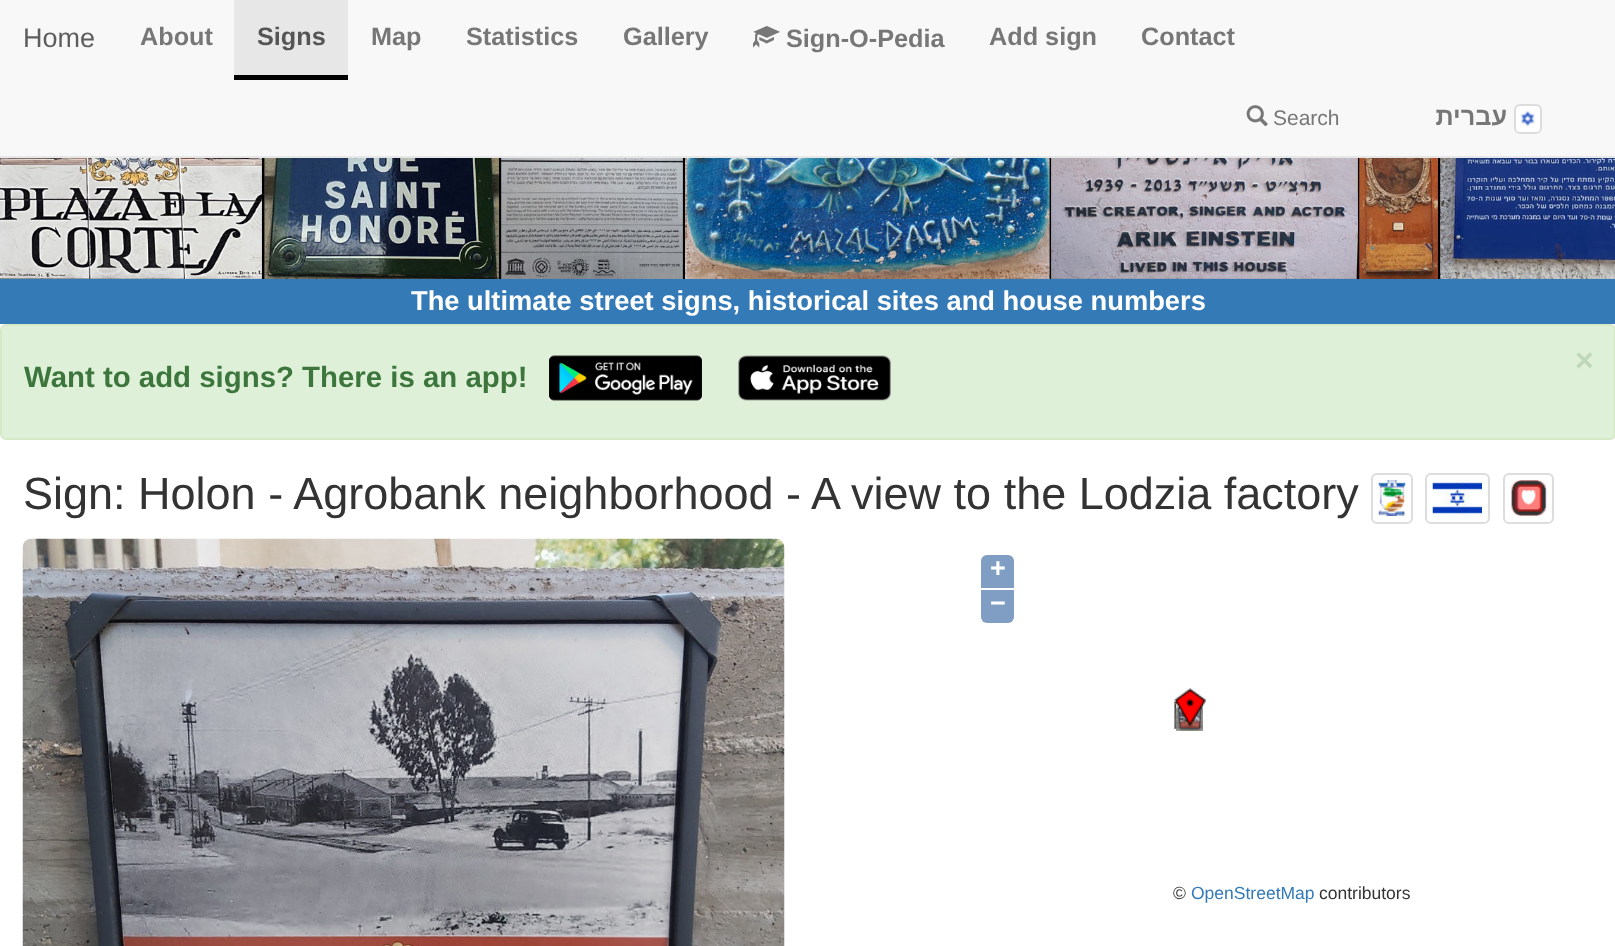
async function draw(canvas) {
  canvas.width = 1615
  canvas.height = 946
  const ctx = canvas.getContext('2d')
  ctx.miterLimit = 4
  ctx.fontKerning = 'normal'
  async function loadImage(src) {
    const img = new Image()
    img.src = src
    await img.decode()
    return img
  }

  ctx.fillStyle = '#fff'
  ctx.fillRect(0, 0, 1615, 946)
  ctx.fillStyle = '#f8f8f8'
  ctx.fillRect(0, 0, 1615, 156)
  ctx.fillStyle = '#e7e7e7'
  ctx.fillRect(0, 156, 1615, 2)
  ctx.font = '27px Liberation Sans'
  ctx.fillStyle = '#5e5e5e'
  ctx.fillText('Home', 23, 47)
  ctx.font = 'bold 25.25px Liberation Sans'
  ctx.fillStyle = '#777'
  ctx.fillText('About', 140, 45)
  ctx.fillStyle = '#e7e7e7'
  ctx.fillRect(234, 0, 114, 75)
  ctx.fillStyle = '#000'
  ctx.fillRect(234, 75, 114, 5)
  ctx.fillStyle = '#555'
  ctx.fillText('Signs', 257, 45)
  ctx.fillStyle = '#777'
  ctx.fillText('Map', 371, 45)
  ctx.fillText('Statistics', 466, 45)
  ctx.fillText('Gallery', 623, 45)
  ctx.drawImage(await loadImage('image0.png'), 753, 26, 27, 22)
  ctx.fillText('Sign-O-Pedia', 786, 47)
  ctx.fillText('Add sign', 989, 45)
  ctx.fillText('Contact', 1141, 45)
  ctx.drawImage(await loadImage('image1.png'), 1246, 105, 22, 22)
  ctx.font = '21px Liberation Sans'
  ctx.fillText('Search', 1273, 125)
  ctx.direction = 'rtl'
  ctx.font = 'bold 25.25px Liberation Sans'
  ctx.fillText('עברית', 1507, 125)
  ctx.fillStyle = '#fff'
  ctx.beginPath()
  ctx.roundRect(1515, 105, 26, 28, 5)
  ctx.fill()
  ctx.strokeStyle = '#ddd'
  ctx.lineWidth = 2
  ctx.stroke()
  ctx.drawImage(await loadImage('image2.png'), 1520, 111, 15, 15)
  ctx.drawImage(await loadImage('image3.png'), 0, 158, 1615, 121)
  ctx.fillStyle = '#337ab7'
  ctx.fillRect(0, 279, 1615, 45)
  ctx.direction = 'ltr'
  ctx.font = 'bold 27.3px Liberation Sans'
  ctx.fillStyle = '#fff'
  ctx.fillText('The ultimate street signs, historical sites and house numbers', 411, 310)
  ctx.fillStyle = '#dff0d8'
  ctx.beginPath()
  ctx.roundRect(1, 325, 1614, 114, 5)
  ctx.fill()
  ctx.strokeStyle = '#d6e9c6'
  ctx.stroke()
  ctx.font = 'bold 29.4px Liberation Sans'
  ctx.fillStyle = '#3c763d'
  ctx.fillText('Want to add signs? There is an app!', 24, 387)
  ctx.drawImage(await loadImage('image4.png'), 549, 355, 153, 46)
  ctx.drawImage(await loadImage('image5.png'), 738, 355, 153, 46)
  ctx.font = 'bold 32px Liberation Sans'
  ctx.fillStyle = '#bed8b9'
  ctx.fillText('×', 1575, 371)
  ctx.font = '45px Liberation Sans'
  ctx.fillStyle = '#333'
  ctx.fillText('Sign: Holon - Agrobank neighborhood - A view to the Lodzia factory', 23, 509)
  ctx.beginPath()
  ctx.roundRect(1372, 474, 40, 49, 5)
  ctx.strokeStyle = '#ddd'
  ctx.stroke()
  ctx.drawImage(await loadImage('image6.png'), 1378, 480, 28, 36)
  ctx.beginPath()
  ctx.roundRect(1426, 474, 63, 49, 5)
  ctx.stroke()
  ctx.drawImage(await loadImage('image7.png'), 1432, 480, 50, 36)
  ctx.beginPath()
  ctx.roundRect(1504, 474, 49, 49, 5)
  ctx.stroke()
  ctx.drawImage(await loadImage('image8.png'), 1511, 480, 36, 36)
  ctx.drawImage(await loadImage('image9.png'), 22, 538, 763, 408)
  ctx.fillStyle = '#809ec4'
  ctx.beginPath()
  ctx.roundRect(981, 555, 33, 33, [6, 6, 0, 0])
  ctx.fill()
  ctx.font = 'bold 27px Liberation Sans'
  ctx.fillStyle = '#fff'
  ctx.fillText('+', 990, 577)
  ctx.fillStyle = '#809ec4'
  ctx.beginPath()
  ctx.roundRect(981, 590, 33, 33, [0, 0, 6, 6])
  ctx.fill()
  ctx.fillStyle = '#fff'
  ctx.fillText('−', 990, 612)
  ctx.drawImage(await loadImage('image13.png'), 1201, 702, 2, 2)
  ctx.drawImage(await loadImage('image14.png'), 1176, 703, 27, 28)
  ctx.drawImage(await loadImage('image11.png'), 1174, 702, 28, 27)
  ctx.drawImage(await loadImage('image15.png'), 1176, 703, 27, 28)
  ctx.drawImage(await loadImage('image12.png'), 1174, 702, 28, 27)
  ctx.drawImage(await loadImage('image16.png'), 1176, 703, 27, 28)
  ctx.drawImage(await loadImage('image10.png'), 1174, 688, 32, 38)
  ctx.font = '17.5px Liberation Sans'
  ctx.fillStyle = '#333'
  ctx.fillText('©', 1173, 899)
  ctx.fillStyle = '#337ab7'
  ctx.fillText('OpenStreetMap', 1191, 899)
  ctx.fillStyle = '#333'
  ctx.fillText('contributors', 1319, 899)
}

draw(document.querySelector('canvas'))
